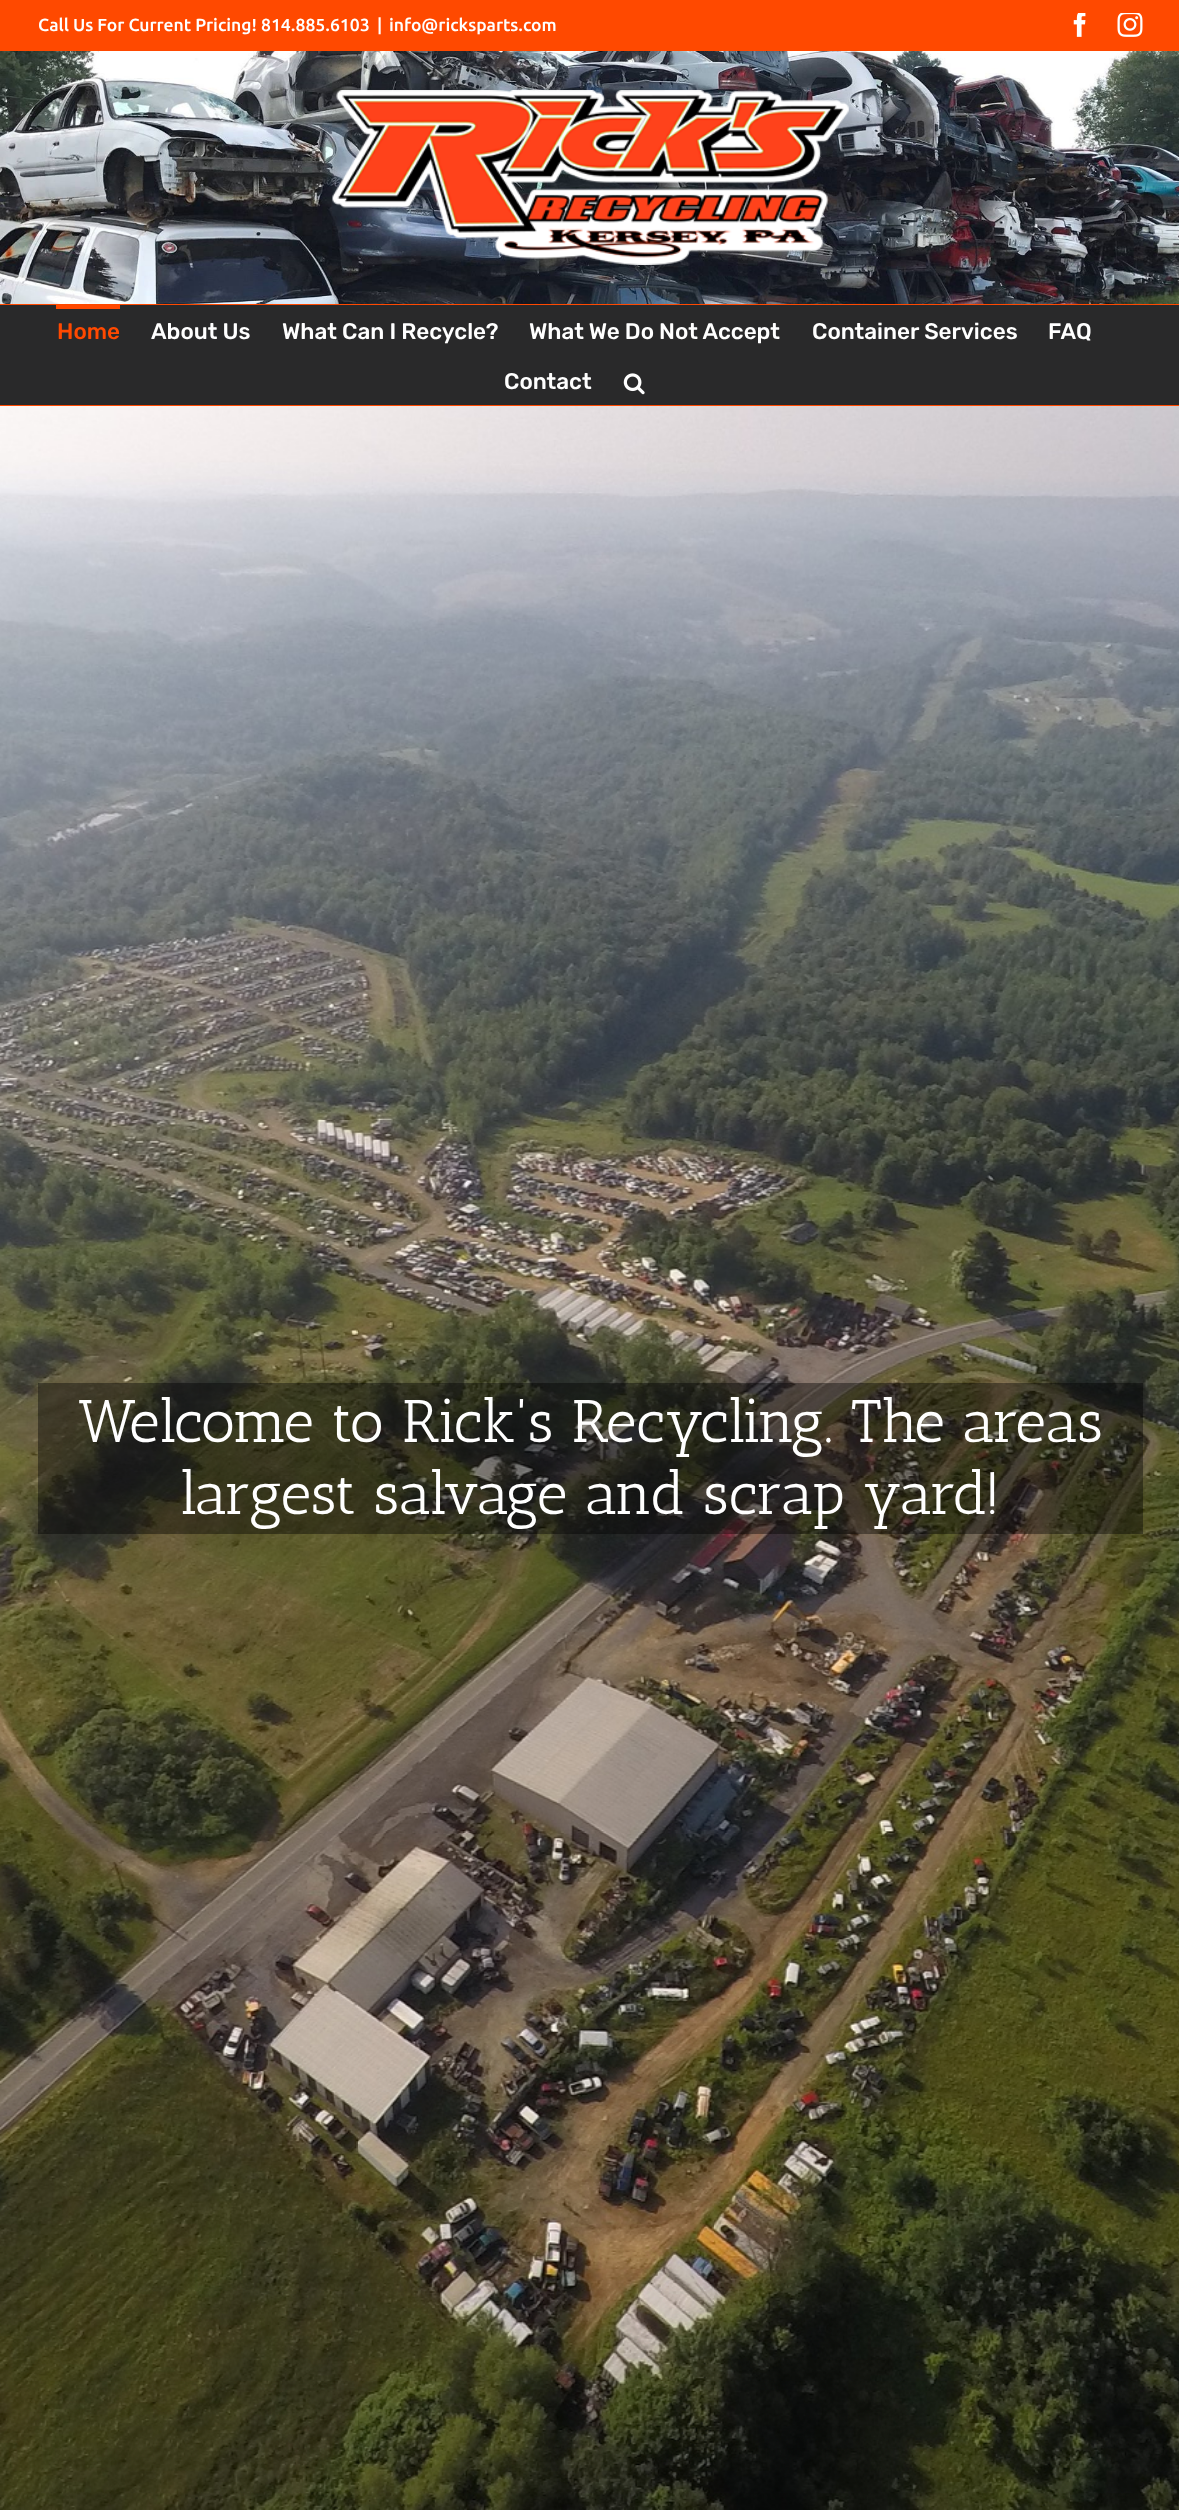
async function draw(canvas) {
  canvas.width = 1179
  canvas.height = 2510
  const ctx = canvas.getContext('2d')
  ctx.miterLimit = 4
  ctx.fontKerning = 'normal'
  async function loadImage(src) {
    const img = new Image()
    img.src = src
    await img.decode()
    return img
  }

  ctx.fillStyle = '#fff'
  ctx.fillRect(0, 0, 1179, 2510)
  ctx.fillStyle = '#ff4900'
  ctx.fillRect(0, 0, 1179, 51)
  ctx.font = '500 17.5px Ubuntu'
  ctx.fillStyle = '#fff'
  ctx.fillText('Call Us For Current Pricing! 814.885.6103', 38, 31)
  ctx.fillText('|', 377, 31)
  ctx.fillText('info@ricksparts.com', 389, 31)
  ctx.drawImage(await loadImage('image0.png'), 1073, 13, 13, 24)
  ctx.drawImage(await loadImage('image1.png'), 1117, 13, 26, 24)
  ctx.drawImage(await loadImage('image2.png'), 0, 51, 1179, 253)
  ctx.fillStyle = '#ff4900'
  ctx.fillRect(0, 304, 1179, 1)
  ctx.drawImage(await loadImage('image3.png'), 332, 90, 517, 175)
  ctx.fillStyle = '#29292a'
  ctx.fillRect(0, 305, 1179, 100)
  ctx.fillStyle = '#ff4900'
  ctx.fillRect(0, 405, 1179, 1)
  ctx.fillRect(56, 305, 64, 4)
  ctx.font = '300 22.5px Rubik'
  ctx.fillText('Home', 57, 339)
  ctx.fillStyle = '#fff'
  ctx.fillText('About Us', 151, 339)
  ctx.fillText('What Can I Recycle?', 282, 339)
  ctx.fillText('What We Do Not Accept', 529, 339)
  ctx.fillText('Container Services', 812, 339)
  ctx.fillText('FAQ', 1048, 339)
  ctx.fillText('Contact', 504, 389)
  ctx.drawImage(await loadImage('image4.png'), 623, 373, 22, 22)
  ctx.drawImage(await loadImage('image5.png'), 0, 406, 1179, 2104)
  ctx.fillStyle = '#00000066'
  ctx.fillRect(38, 1383, 1105, 151)
  ctx.font = '60px Antic Slab'
  ctx.fillStyle = '#fff'
  ctx.fillText('Welcome to Rick\'s Recycling. The areas', 78, 1442)
  ctx.fillText('largest salvage and scrap yard!', 179, 1514)
}

draw(document.querySelector('canvas'))
